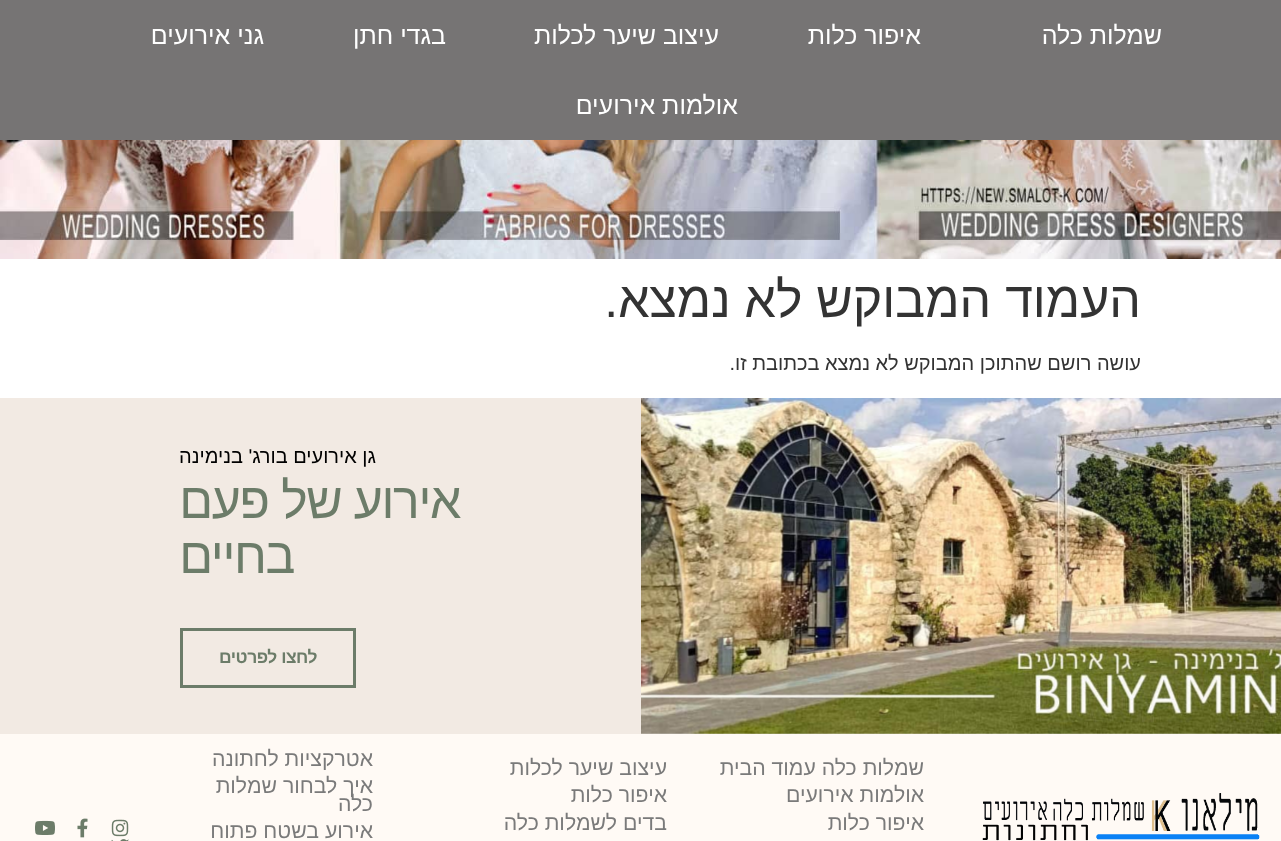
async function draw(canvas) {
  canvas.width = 1281
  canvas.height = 841
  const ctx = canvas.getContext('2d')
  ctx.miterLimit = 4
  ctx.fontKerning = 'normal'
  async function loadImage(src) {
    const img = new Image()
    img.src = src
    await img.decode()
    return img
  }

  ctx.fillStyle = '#fff'
  ctx.fillRect(0, 0, 1281, 841)
  ctx.fillStyle = '#767474'
  ctx.fillRect(0, 0, 1281, 140)
  ctx.direction = 'rtl'
  ctx.font = '25px Liberation Sans'
  ctx.fillStyle = '#fff'
  ctx.fillText('שמלות כלה', 1162, 44)
  ctx.fillText('איפור כלות', 921, 44)
  ctx.fillText('עיצוב שיער לכלות', 719, 44)
  ctx.fillText('בגדי חתן', 446, 44)
  ctx.fillText('גני אירועים', 264, 44)
  ctx.fillText('אולמות אירועים', 738, 114)
  ctx.drawImage(await loadImage('image0.png'), 0, 140, 1281, 119)
  ctx.font = '50px Liberation Sans'
  ctx.fillStyle = '#333'
  ctx.fillText('העמוד המבוקש לא נמצא.', 1141, 317)
  ctx.font = '20px Liberation Sans'
  ctx.fillText('עושה רושם שהתוכן המבוקש לא נמצא בכתובת זו.', 1141, 370)
  ctx.fillStyle = '#fffaf5'
  ctx.fillRect(0, 733, 1281, 108)
  ctx.drawImage(await loadImage('image1.png'), 641, 398, 640, 336)
  ctx.fillStyle = '#f2eae3'
  ctx.fillRect(0, 398, 641, 336)
  ctx.fillStyle = '#000'
  ctx.fillText('גן אירועים בורג\' בנימינה', 376, 463)
  ctx.letterSpacing = '-1.4px'
  ctx.font = '50px Liberation Sans'
  ctx.fillStyle = '#6c7c69'
  ctx.fillText('אירוע של פעם', 460, 518)
  ctx.fillText('בחיים', 294, 573)
  ctx.strokeStyle = '#6c7c69'
  ctx.lineWidth = 3
  ctx.strokeRect(181.5, 629.5, 173, 57)
  ctx.letterSpacing = '-0.5px'
  ctx.font = 'bold 17.5px Liberation Sans'
  ctx.fillText('לחצו לפרטים', 317, 663)
  ctx.drawImage(await loadImage('image2.png'), 982, 793, 278, 48)
  ctx.letterSpacing = '0px'
  ctx.font = '21.25px Liberation Sans'
  ctx.fillStyle = '#7a7a7a'
  ctx.fillText('שמלות כלה עמוד הבית', 924, 775)
  ctx.fillText('אולמות אירועים', 924, 802)
  ctx.fillText('איפור כלות', 924, 830)
  ctx.fillText('עיצוב שיער לכלות', 667, 775)
  ctx.fillText('איפור כלות', 667, 802)
  ctx.fillText('בדים לשמלות כלה', 667, 830)
  ctx.fillText('אטרקציות לחתונה', 373, 766)
  ctx.fillText('איך לבחור שמלות', 373, 793)
  ctx.fillText('כלה', 373, 811)
  ctx.fillText('אירוע בשטח פתוח', 373, 838)
  ctx.drawImage(await loadImage('image3.png'), 111, 819, 18, 18)
  ctx.drawImage(await loadImage('image4.png'), 77, 818, 11, 20)
  ctx.drawImage(await loadImage('image5.png'), 35, 820, 20, 15)
  ctx.drawImage(await loadImage('image6.png'), 111, 839, 18, 2)
}

draw(document.querySelector('canvas'))
